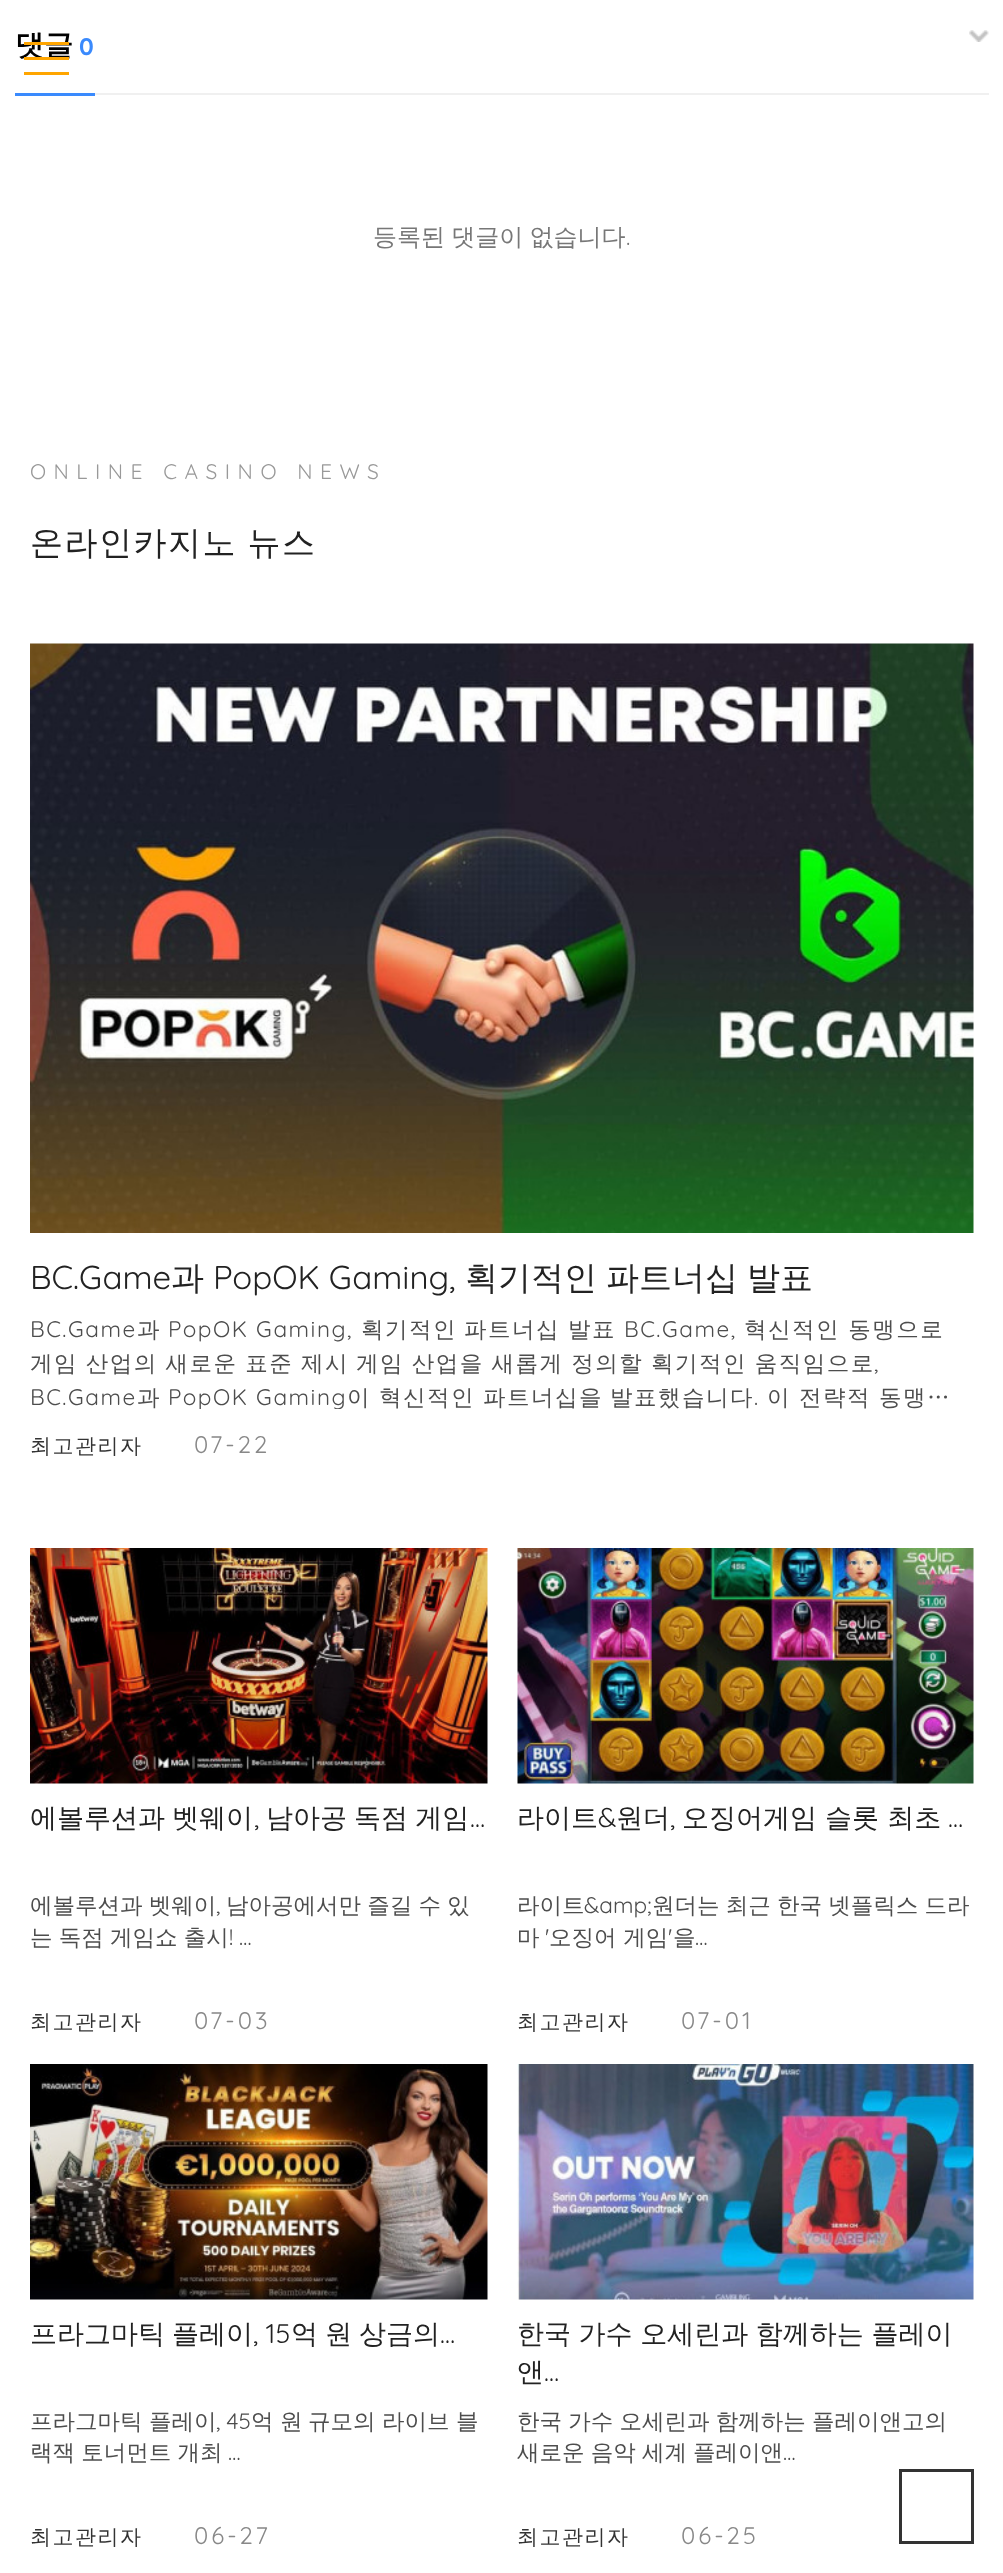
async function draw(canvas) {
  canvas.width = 1003
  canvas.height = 2573
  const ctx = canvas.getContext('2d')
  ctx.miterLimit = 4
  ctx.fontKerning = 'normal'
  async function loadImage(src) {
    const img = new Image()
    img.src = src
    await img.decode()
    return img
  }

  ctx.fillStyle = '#fff'
  ctx.fillRect(0, 0, 1003, 2573)
  ctx.fillStyle = '#f0f0f0'
  ctx.fillRect(95, 93, 894, 2)
  ctx.font = 'bold 29px WenQuanYi Zen Hei'
  ctx.fillStyle = '#000'
  ctx.fillText('댓글', 15, 55)
  ctx.font = 'bold 24px Quicksand'
  ctx.fillStyle = '#3a8afd'
  ctx.fillText('0', 79, 55)
  ctx.fillRect(15, 93, 80, 3)
  ctx.drawImage(await loadImage('image0.png'), 969, 30, 20, 12)
  ctx.wordSpacing = '-1px'
  ctx.font = '500 24px WenQuanYi Zen Hei'
  ctx.fillStyle = '#777'
  ctx.fillText('등록된 댓글이 없습니다', 373, 245)
  ctx.wordSpacing = '0px'
  ctx.font = '24px Quicksand'
  ctx.fillText('.', 626, 245)
  ctx.letterSpacing = '7.5px'
  ctx.font = '21px Quicksand'
  ctx.fillStyle = '#999'
  ctx.fillText('ONLINE CASINO NEWS', 30, 479)
  ctx.letterSpacing = '1.5px'
  ctx.wordSpacing = '-1px'
  ctx.font = '500 33px WenQuanYi Zen Hei'
  ctx.fillStyle = '#222'
  ctx.fillText('온라인카지노 뉴스', 30, 554)
  ctx.drawImage(await loadImage('image1.png'), 30, 643, 944, 590)
  ctx.letterSpacing = '0px'
  ctx.wordSpacing = '0px'
  ctx.font = '33px Quicksand'
  ctx.fillText('BC.Game', 30, 1289)
  ctx.font = '500 33px WenQuanYi Zen Hei'
  ctx.fillText('과', 171, 1289)
  ctx.font = '33px Quicksand'
  ctx.fillText('PopOK Gaming,', 213, 1289)
  ctx.font = '500 33px WenQuanYi Zen Hei'
  ctx.fillText('획기적인', 465, 1289)
  ctx.fillText('파트너십', 606, 1289)
  ctx.fillText('발표', 747, 1289)
  ctx.letterSpacing = '1.5px'
  ctx.font = '22.5px Quicksand'
  ctx.fillStyle = '#4d4d4d'
  ctx.fillText('BC.Game', 30, 1337)
  ctx.font = '500 22.5px WenQuanYi Zen Hei'
  ctx.fillText('과', 137, 1337)
  ctx.font = '22.5px Quicksand'
  ctx.fillText('PopOK Gaming,', 168, 1337)
  ctx.font = '500 22.5px WenQuanYi Zen Hei'
  ctx.fillText('획기적인', 361, 1337)
  ctx.fillText('파트너십', 464, 1337)
  ctx.fillText('발표', 568, 1337)
  ctx.font = '22.5px Quicksand'
  ctx.fillText('BC.Game,', 624, 1337)
  ctx.font = '500 22.5px WenQuanYi Zen Hei'
  ctx.fillText('혁신적인 동맹으로', 744, 1337)
  ctx.wordSpacing = '-0.5px'
  ctx.fillText('게임 산업의 새로운 표준 제시', 30, 1371)
  ctx.fillText('게임 산업을 새롭게 정의할 획기적인 움직임으로', 356, 1371)
  ctx.wordSpacing = '0px'
  ctx.font = '22.5px Quicksand'
  ctx.fillText(',', 874, 1371)
  ctx.fillText('BC.Game', 30, 1405)
  ctx.font = '500 22.5px WenQuanYi Zen Hei'
  ctx.fillText('과', 137, 1405)
  ctx.save()
  ctx.beginPath()
  ctx.rect(30, 1314, 944, 95)
  ctx.clip()
  ctx.font = '22.5px Quicksand'
  ctx.fillText('PopOK Gaming', 168, 1405)
  ctx.restore()
  ctx.fillText('이', 347, 1405)
  ctx.fillText('혁신적인', 379, 1405)
  ctx.fillText('파트너십을', 483, 1405)
  ctx.fillText('발표했습니다', 610, 1405)
  ctx.font = '22.5px Quicksand'
  ctx.fillText('.', 754, 1405)
  ctx.font = '500 22.5px WenQuanYi Zen Hei'
  ctx.fillText('이', 767, 1405)
  ctx.fillText('전략적', 799, 1405)
  ctx.fillText('동맹…', 879, 1405)
  ctx.font = '500 21px WenQuanYi Zen Hei'
  ctx.fillStyle = '#333'
  ctx.fillText('최고관리자', 30, 1453)
  ctx.letterSpacing = '3px'
  ctx.font = '24px Quicksand'
  ctx.fillStyle = '#888'
  ctx.fillText('07-22', 194, 1453)
  ctx.drawImage(await loadImage('image2.png'), 30, 1548, 458, 236)
  ctx.letterSpacing = '0px'
  ctx.wordSpacing = '-1px'
  ctx.font = '500 27px WenQuanYi Zen Hei'
  ctx.fillStyle = '#222'
  ctx.fillText('에볼루션과 벳웨이', 30, 1827)
  ctx.wordSpacing = '0px'
  ctx.font = '27px Quicksand'
  ctx.fillText(',', 254, 1827)
  ctx.wordSpacing = '-1px'
  ctx.font = '500 27px WenQuanYi Zen Hei'
  ctx.fillText('남아공 독점 게임', 266, 1827)
  ctx.wordSpacing = '0px'
  ctx.font = '27px Quicksand'
  ctx.fillText('…', 470, 1827)
  ctx.wordSpacing = '-0.5px'
  ctx.font = '500 22.5px WenQuanYi Zen Hei'
  ctx.fillStyle = '#4d4d4d'
  ctx.fillText('에볼루션과 벳웨이', 30, 1913)
  ctx.wordSpacing = '0px'
  ctx.font = '22.5px Quicksand'
  ctx.fillText(',', 216, 1913)
  ctx.wordSpacing = '-0.5px'
  ctx.font = '500 22.5px WenQuanYi Zen Hei'
  ctx.fillText('남아공에서만 즐길 수 있', 226, 1913)
  ctx.fillText('는 독점 게임쇼 출시', 30, 1945)
  ctx.wordSpacing = '0px'
  ctx.font = '22.5px Quicksand'
  ctx.fillText('!', 229, 1945)
  ctx.fillText('…', 239, 1945)
  ctx.letterSpacing = '1.5px'
  ctx.font = '500 21px WenQuanYi Zen Hei'
  ctx.fillStyle = '#333'
  ctx.fillText('최고관리자', 30, 2029)
  ctx.letterSpacing = '3px'
  ctx.font = '24px Quicksand'
  ctx.fillStyle = '#888'
  ctx.fillText('07-03', 194, 2029)
  ctx.drawImage(await loadImage('image3.png'), 517, 1548, 457, 236)
  ctx.letterSpacing = '0px'
  ctx.font = '500 27px WenQuanYi Zen Hei'
  ctx.fillStyle = '#222'
  ctx.fillText('라이트', 517, 1827)
  ctx.font = '27px Quicksand'
  ctx.fillText('&', 598, 1827)
  ctx.font = '500 27px WenQuanYi Zen Hei'
  ctx.fillText('원더', 616, 1827)
  ctx.font = '27px Quicksand'
  ctx.fillText(',', 670, 1827)
  ctx.font = '500 27px WenQuanYi Zen Hei'
  ctx.fillText('오징어게임 슬롯 최초', 682, 1827)
  ctx.font = '27px Quicksand'
  ctx.fillText('…', 948, 1827)
  ctx.font = '500 22.5px WenQuanYi Zen Hei'
  ctx.fillStyle = '#4d4d4d'
  ctx.fillText('라이트', 517, 1913)
  ctx.font = '22.5px Quicksand'
  ctx.fillText('&amp;', 584, 1913)
  ctx.wordSpacing = '-0.5px'
  ctx.font = '500 22.5px WenQuanYi Zen Hei'
  ctx.fillText('원더는 최근 한국 넷플릭스 드라', 652, 1913)
  ctx.wordSpacing = '0px'
  ctx.fillText('마', 517, 1945)
  ctx.font = '22.5px Quicksand'
  ctx.fillText('\'', 545, 1945)
  ctx.font = '500 22.5px WenQuanYi Zen Hei'
  ctx.fillText('오징어 게임', 549, 1945)
  ctx.font = '22.5px Quicksand'
  ctx.fillText('\'', 668, 1945)
  ctx.font = '500 22.5px WenQuanYi Zen Hei'
  ctx.fillText('을', 673, 1945)
  ctx.font = '22.5px Quicksand'
  ctx.fillText('…', 695, 1945)
  ctx.letterSpacing = '1.5px'
  ctx.font = '500 21px WenQuanYi Zen Hei'
  ctx.fillStyle = '#333'
  ctx.fillText('최고관리자', 517, 2029)
  ctx.letterSpacing = '3px'
  ctx.font = '24px Quicksand'
  ctx.fillStyle = '#888'
  ctx.fillText('07-01', 681, 2029)
  ctx.drawImage(await loadImage('image4.png'), 30, 2064, 458, 236)
  ctx.letterSpacing = '0px'
  ctx.font = '500 27px WenQuanYi Zen Hei'
  ctx.fillStyle = '#222'
  ctx.fillText('프라그마틱', 30, 2343)
  ctx.fillText('플레이', 172, 2343)
  ctx.font = '27px Quicksand'
  ctx.fillText(', 15', 253, 2343)
  ctx.font = '500 27px WenQuanYi Zen Hei'
  ctx.fillText('억', 291, 2343)
  ctx.fillText('원', 325, 2343)
  ctx.fillText('상금의', 359, 2343)
  ctx.font = '27px Quicksand'
  ctx.fillText('…', 440, 2343)
  ctx.font = '500 22.5px WenQuanYi Zen Hei'
  ctx.fillStyle = '#4d4d4d'
  ctx.fillText('프라그마틱', 30, 2429)
  ctx.fillText('플레이', 149, 2429)
  ctx.font = '22.5px Quicksand'
  ctx.fillText(', 45', 216, 2429)
  ctx.font = '500 22.5px WenQuanYi Zen Hei'
  ctx.fillText('억', 251, 2429)
  ctx.fillText('원', 280, 2429)
  ctx.fillText('규모의', 308, 2429)
  ctx.fillText('라이브', 382, 2429)
  ctx.fillText('블', 456, 2429)
  ctx.wordSpacing = '-0.5px'
  ctx.fillText('랙잭 토너먼트 개최', 30, 2460)
  ctx.wordSpacing = '0px'
  ctx.font = '22.5px Quicksand'
  ctx.fillText('…', 228, 2460)
  ctx.letterSpacing = '1.5px'
  ctx.font = '500 21px WenQuanYi Zen Hei'
  ctx.fillStyle = '#333'
  ctx.fillText('최고관리자', 30, 2544)
  ctx.letterSpacing = '3px'
  ctx.font = '24px Quicksand'
  ctx.fillStyle = '#888'
  ctx.fillText('06-27', 194, 2544)
  ctx.drawImage(await loadImage('image5.png'), 517, 2064, 457, 236)
  ctx.letterSpacing = '0px'
  ctx.wordSpacing = '-0.5px'
  ctx.font = '500 27px WenQuanYi Zen Hei'
  ctx.fillStyle = '#222'
  ctx.fillText('한국 가수 오세린과 함께하는 플레이', 517, 2343)
  ctx.wordSpacing = '0px'
  ctx.fillText('앤', 517, 2381)
  ctx.font = '27px Quicksand'
  ctx.fillText('…', 544, 2381)
  ctx.wordSpacing = '-0.5px'
  ctx.font = '500 22.5px WenQuanYi Zen Hei'
  ctx.fillStyle = '#4d4d4d'
  ctx.fillText('한국 가수 오세린과 함께하는 플레이앤고의', 517, 2429)
  ctx.fillText('새로운 음악 세계', 517, 2460)
  ctx.wordSpacing = '0px'
  ctx.fillText('플레이앤', 693, 2460)
  ctx.font = '22.5px Quicksand'
  ctx.fillText('…', 783, 2460)
  ctx.letterSpacing = '1.5px'
  ctx.font = '500 21px WenQuanYi Zen Hei'
  ctx.fillStyle = '#333'
  ctx.fillText('최고관리자', 517, 2544)
  ctx.letterSpacing = '3px'
  ctx.font = '24px Quicksand'
  ctx.fillStyle = '#888'
  ctx.fillText('06-25', 681, 2544)
  ctx.strokeStyle = '#333'
  ctx.lineWidth = 3
  ctx.strokeRect(900.5, 2470.5, 72, 72)
  ctx.fillStyle = '#ffa500'
  ctx.fillRect(24, 57, 45, 3)
  ctx.fillRect(24, 42, 45, 3)
  ctx.fillRect(24, 72, 45, 3)
}

draw(document.querySelector('canvas'))
